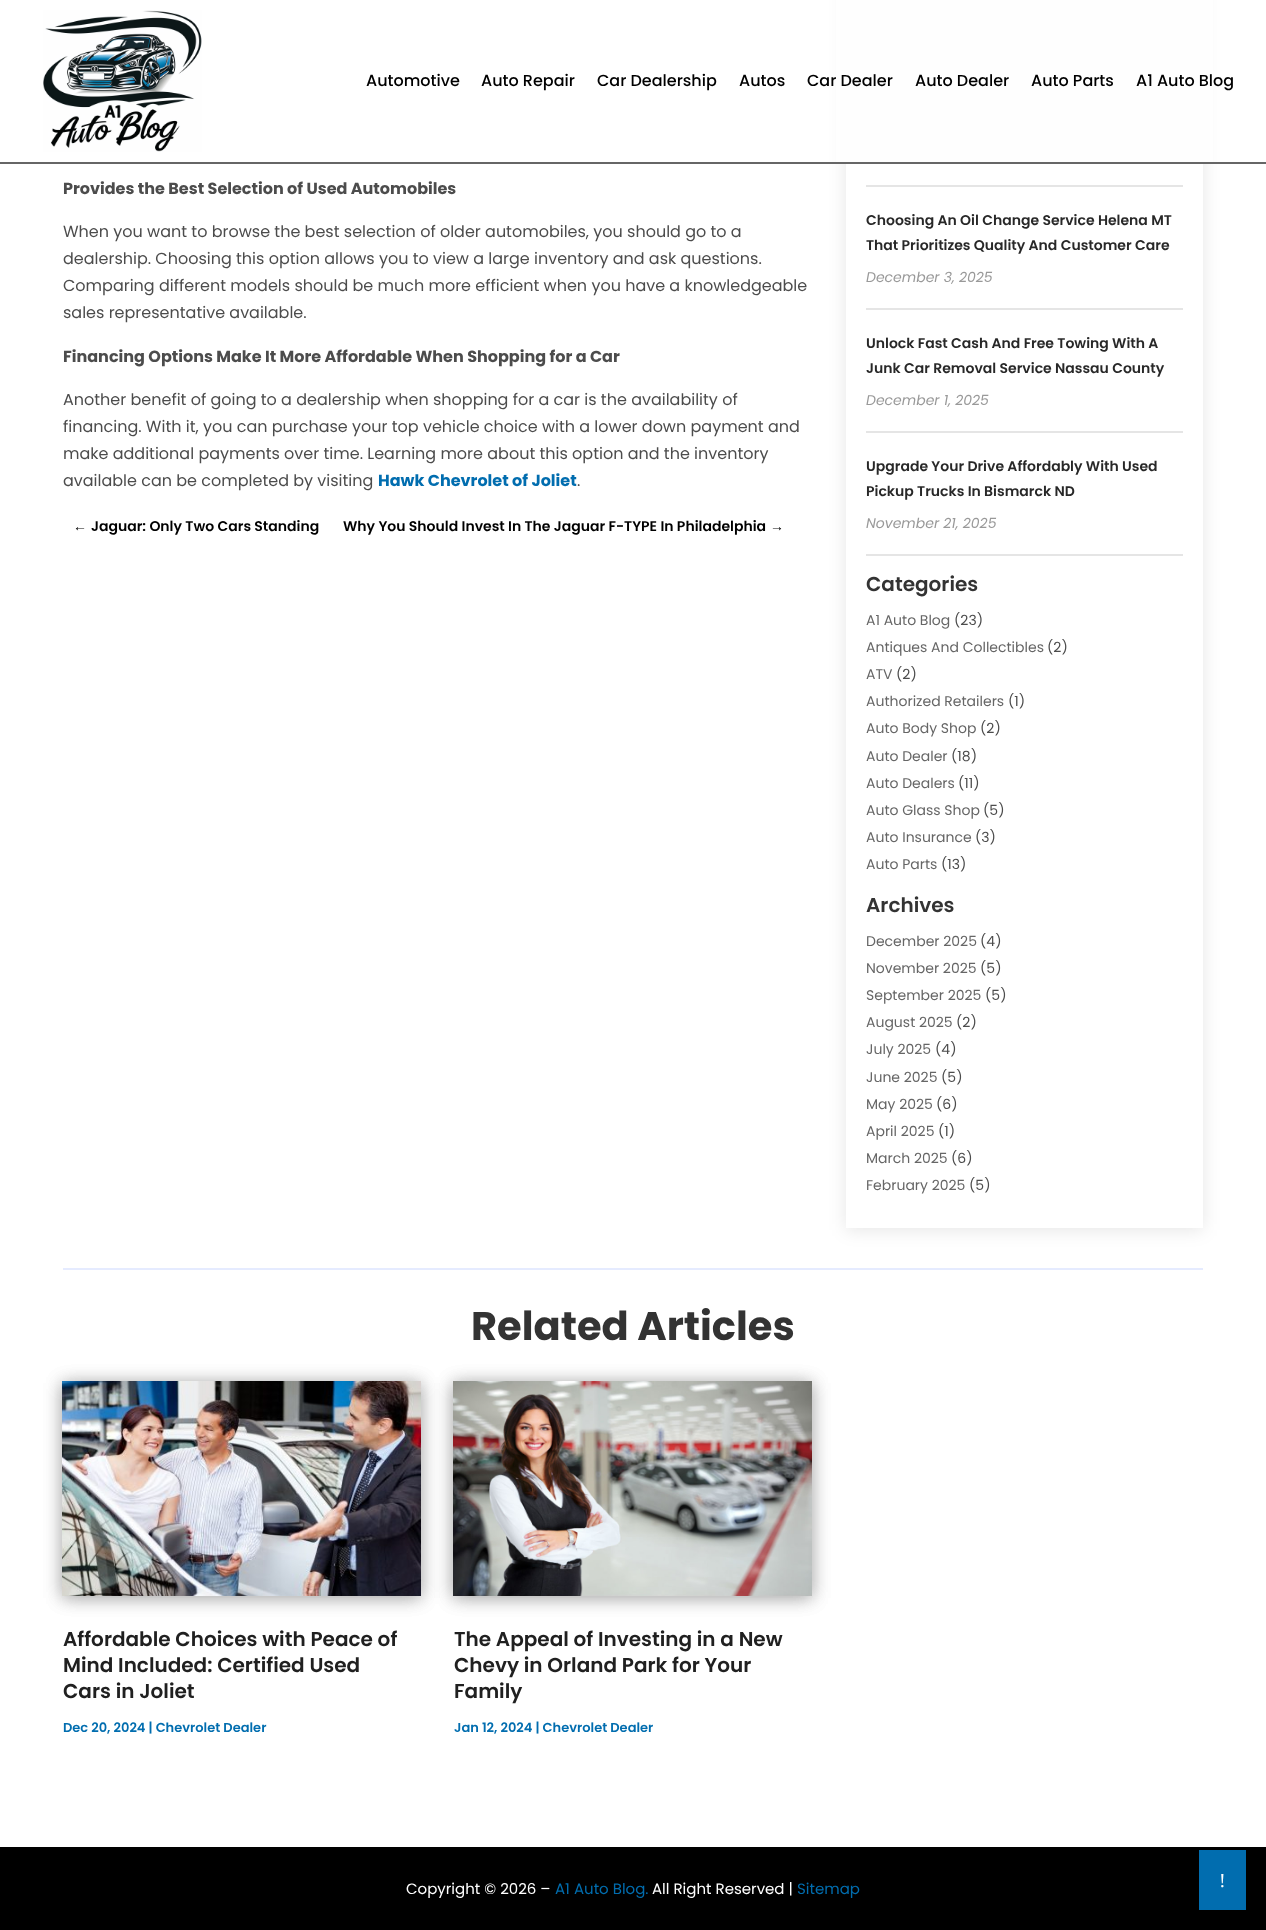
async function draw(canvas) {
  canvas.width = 1266
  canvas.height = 1930
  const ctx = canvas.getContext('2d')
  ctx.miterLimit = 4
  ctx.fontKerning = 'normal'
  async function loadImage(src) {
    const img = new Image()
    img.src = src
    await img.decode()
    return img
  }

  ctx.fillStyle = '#fff'
  ctx.fillRect(0, 0, 1266, 1930)
  ctx.save()
  ctx.beginPath()
  ctx.moveTo(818, 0)
  ctx.lineTo(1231, 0)
  ctx.lineTo(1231, 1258)
  ctx.lineTo(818, 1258)
  ctx.closePath()
  ctx.moveTo(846, -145)
  ctx.lineTo(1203, -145)
  ctx.lineTo(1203, 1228)
  ctx.lineTo(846, 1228)
  ctx.closePath()
  ctx.clip('evenodd')
  ctx.fillStyle = '#0000001a'
  ctx.filter = 'blur(9px)'
  ctx.beginPath()
  ctx.rect(846, -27, 357, 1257)
  ctx.fill()
  ctx.filter = 'none'
  ctx.restore()
  ctx.fillStyle = '#fefefe'
  ctx.fillRect(836, 0, 377, 162)
  ctx.fillStyle = '#666'
  ctx.fillRect(0, 162, 1266, 2)
  ctx.drawImage(await loadImage('image0.png'), 43, 10, 159, 142)
  ctx.font = '500 16px Poppins'
  ctx.fillStyle = '#000'
  ctx.fillText('Automotive', 366, 86)
  ctx.fillText('Auto Repair', 481, 86)
  ctx.fillText('Car Dealership', 597, 86)
  ctx.fillText('Autos', 739, 86)
  ctx.fillText('Car Dealer', 807, 86)
  ctx.fillText('Auto Dealer', 915, 86)
  ctx.fillText('Auto Parts', 1031, 86)
  ctx.fillText('A1 Auto Blog', 1136, 86)
  ctx.font = 'bold 16px Poppins'
  ctx.fillStyle = '#4c4c4c'
  ctx.fillText('Provides the Best Selection of Used Automobiles', 63, 194)
  ctx.font = '16px Poppins'
  ctx.fillText('When you want to browse the best selection of older automobiles, you should go to a', 63, 237)
  ctx.fillText('dealership. Choosing this option allows you to view a large inventory and ask questions.', 63, 264)
  ctx.fillText('Comparing different models should be much more efficient when you have a knowledgeable', 63, 291)
  ctx.fillText('sales representative available.', 63, 318)
  ctx.font = 'bold 16px Poppins'
  ctx.fillText('Financing Options Make It More Affordable When Shopping for a Car', 63, 362)
  ctx.font = '16px Poppins'
  ctx.fillText('Another benefit of going to a dealership when shopping for a car is the availability of', 63, 405)
  ctx.fillText('financing. With it, you can purchase your top vehicle choice with a lower down payment and', 63, 432)
  ctx.fillText('make additional payments over time. Learning more about this option and the inventory', 63, 459)
  ctx.fillText('available can be completed by visiting', 63, 486)
  ctx.font = 'bold 16px Poppins'
  ctx.fillStyle = '#016daf'
  ctx.fillText('Hawk Chevrolet of Joliet', 378, 486)
  ctx.font = '16px Poppins'
  ctx.fillStyle = '#4c4c4c'
  ctx.fillText('.', 577, 486)
  ctx.font = 'bold 14px Liberation Sans'
  ctx.fillStyle = '#000'
  ctx.fillText('←', 73, 531)
  ctx.font = '600 14px Poppins'
  ctx.fillText('Jaguar: Only Two Cars Standing', 91, 531)
  ctx.fillText('Why You Should Invest In The Jaguar F-TYPE In Philadelphia', 343, 531)
  ctx.font = 'bold 14px Liberation Sans'
  ctx.fillText('→', 770, 531)
  ctx.fillStyle = '#e5e5e5'
  ctx.fillRect(866, 185, 317, 2)
  ctx.fillRect(866, 308, 317, 2)
  ctx.font = '600 14px Poppins'
  ctx.fillStyle = '#282828'
  ctx.fillText('Choosing An Oil Change Service Helena MT', 866, 225)
  ctx.fillText('That Prioritizes Quality And Customer Care', 866, 250)
  ctx.font = 'italic 14px Poppins'
  ctx.fillStyle = '#999'
  ctx.fillText('December 3, 2025', 866, 282)
  ctx.fillStyle = '#e5e5e5'
  ctx.fillRect(866, 431, 317, 2)
  ctx.font = '600 14px Poppins'
  ctx.fillStyle = '#282828'
  ctx.fillText('Unlock Fast Cash And Free Towing With A', 866, 348)
  ctx.fillText('Junk Car Removal Service Nassau County', 866, 373)
  ctx.font = 'italic 14px Poppins'
  ctx.fillStyle = '#999'
  ctx.fillText('December 1, 2025', 866, 405)
  ctx.fillStyle = '#e5e5e5'
  ctx.fillRect(866, 554, 317, 2)
  ctx.font = '600 14px Poppins'
  ctx.fillStyle = '#282828'
  ctx.fillText('Upgrade Your Drive Affordably With Used', 866, 471)
  ctx.fillText('Pickup Trucks In Bismarck ND', 866, 496)
  ctx.font = 'italic 14px Poppins'
  ctx.fillStyle = '#999'
  ctx.fillText('November 21, 2025', 866, 528)
  ctx.font = '600 20px Poppins'
  ctx.fillStyle = '#333'
  ctx.fillText('Categories', 866, 591)
  ctx.font = '14px Poppins'
  ctx.fillStyle = '#666'
  ctx.fillText('A1 Auto Blog', 866, 625)
  ctx.fillStyle = '#4c4c4c'
  ctx.fillText('(23)', 954, 625)
  ctx.fillStyle = '#666'
  ctx.fillText('Antiques And Collectibles', 866, 652)
  ctx.fillStyle = '#4c4c4c'
  ctx.fillText('(2)', 1047, 652)
  ctx.fillStyle = '#666'
  ctx.fillText('ATV', 866, 679)
  ctx.fillStyle = '#4c4c4c'
  ctx.fillText('(2)', 896, 679)
  ctx.fillStyle = '#666'
  ctx.fillText('Authorized Retailers', 866, 706)
  ctx.fillStyle = '#4c4c4c'
  ctx.fillText('(1)', 1008, 706)
  ctx.fillStyle = '#666'
  ctx.fillText('Auto Body Shop', 866, 733)
  ctx.fillStyle = '#4c4c4c'
  ctx.fillText('(2)', 980, 733)
  ctx.fillStyle = '#666'
  ctx.fillText('Auto Dealer', 866, 761)
  ctx.fillStyle = '#4c4c4c'
  ctx.fillText('(18)', 951, 761)
  ctx.fillStyle = '#666'
  ctx.fillText('Auto Dealers', 866, 788)
  ctx.fillStyle = '#4c4c4c'
  ctx.fillText('(11)', 958, 788)
  ctx.fillStyle = '#666'
  ctx.fillText('Auto Glass Shop', 866, 815)
  ctx.fillStyle = '#4c4c4c'
  ctx.fillText('(5)', 983, 815)
  ctx.fillStyle = '#666'
  ctx.fillText('Auto Insurance', 866, 842)
  ctx.fillStyle = '#4c4c4c'
  ctx.fillText('(3)', 975, 842)
  ctx.fillStyle = '#666'
  ctx.fillText('Auto Parts', 866, 869)
  ctx.fillStyle = '#4c4c4c'
  ctx.fillText('(13)', 941, 869)
  ctx.font = '600 20px Poppins'
  ctx.fillStyle = '#333'
  ctx.fillText('Archives', 866, 912)
  ctx.font = '14px Poppins'
  ctx.fillStyle = '#666'
  ctx.fillText('December 2025', 866, 946)
  ctx.fillStyle = '#4c4c4c'
  ctx.fillText('(4)', 980, 946)
  ctx.fillStyle = '#666'
  ctx.fillText('November 2025', 866, 973)
  ctx.fillStyle = '#4c4c4c'
  ctx.fillText('(5)', 980, 973)
  ctx.fillStyle = '#666'
  ctx.fillText('September 2025', 866, 1000)
  ctx.fillStyle = '#4c4c4c'
  ctx.fillText('(5)', 985, 1000)
  ctx.fillStyle = '#666'
  ctx.fillText('August 2025', 866, 1027)
  ctx.fillStyle = '#4c4c4c'
  ctx.fillText('(2)', 956, 1027)
  ctx.fillStyle = '#666'
  ctx.fillText('July 2025', 866, 1054)
  ctx.fillStyle = '#4c4c4c'
  ctx.fillText('(4)', 935, 1054)
  ctx.fillStyle = '#666'
  ctx.fillText('June 2025', 866, 1082)
  ctx.fillStyle = '#4c4c4c'
  ctx.fillText('(5)', 941, 1082)
  ctx.fillStyle = '#666'
  ctx.fillText('May 2025', 866, 1109)
  ctx.fillStyle = '#4c4c4c'
  ctx.fillText('(6)', 936, 1109)
  ctx.fillStyle = '#666'
  ctx.fillText('April 2025', 866, 1136)
  ctx.fillStyle = '#4c4c4c'
  ctx.fillText('(1)', 938, 1136)
  ctx.fillStyle = '#666'
  ctx.fillText('March 2025', 866, 1163)
  ctx.fillStyle = '#4c4c4c'
  ctx.fillText('(6)', 951, 1163)
  ctx.fillStyle = '#666'
  ctx.fillText('February 2025', 866, 1190)
  ctx.fillStyle = '#4c4c4c'
  ctx.fillText('(5)', 969, 1190)
  ctx.fillStyle = '#e5ebff'
  ctx.fillRect(63, 1268, 1140, 2)
  ctx.font = 'bold 40px Poppins'
  ctx.fillStyle = '#333'
  ctx.fillText('Related Articles', 471, 1340)
  ctx.fillStyle = '#00000033'
  ctx.filter = 'blur(9px)'
  ctx.beginPath()
  ctx.rect(62, 1383, 359, 215)
  ctx.fill()
  ctx.filter = 'none'
  ctx.filter = 'blur(9px)'
  ctx.beginPath()
  ctx.rect(62, 1383, 359, 215)
  ctx.fill()
  ctx.filter = 'none'
  ctx.drawImage(await loadImage('image1.png'), 62, 1381, 359, 215)
  ctx.font = '600 20px Poppins'
  ctx.fillStyle = '#202020'
  ctx.fillText('Affordable Choices with Peace of', 63, 1646)
  ctx.fillText('Mind Included: Certified Used', 63, 1672)
  ctx.fillText('Cars in Joliet', 63, 1698)
  ctx.font = '600 13px Poppins'
  ctx.fillStyle = '#016daf'
  ctx.fillText('Dec 20, 2024 | Chevrolet Dealer', 63, 1732)
  ctx.fillStyle = '#00000033'
  ctx.filter = 'blur(9px)'
  ctx.beginPath()
  ctx.rect(453, 1383, 359, 215)
  ctx.fill()
  ctx.filter = 'none'
  ctx.filter = 'blur(9px)'
  ctx.beginPath()
  ctx.rect(453, 1383, 359, 215)
  ctx.fill()
  ctx.filter = 'none'
  ctx.drawImage(await loadImage('image2.png'), 453, 1381, 359, 215)
  ctx.font = '600 20px Poppins'
  ctx.fillStyle = '#202020'
  ctx.fillText('The Appeal of Investing in a New', 454, 1646)
  ctx.fillText('Chevy in Orland Park for Your', 454, 1672)
  ctx.fillText('Family', 454, 1698)
  ctx.font = '600 13px Poppins'
  ctx.fillStyle = '#016daf'
  ctx.fillText('Jan 12, 2024 | Chevrolet Dealer', 454, 1732)
  ctx.fillStyle = '#000'
  ctx.fillRect(0, 1847, 1266, 83)
  ctx.font = '15px Poppins'
  ctx.fillStyle = '#fff'
  ctx.fillText('Copyright © 2026 –', 406, 1894)
  ctx.fillStyle = '#016daf'
  ctx.fillText('A1 Auto Blog.', 555, 1894)
  ctx.fillStyle = '#fff'
  ctx.fillText('All Right Reserved |', 652, 1894)
  ctx.fillStyle = '#016daf'
  ctx.fillText('Sitemap', 797, 1894)
  ctx.fillRect(1199, 1850, 47, 60)
  ctx.font = '20px Liberation Serif'
  ctx.fillStyle = '#fff'
  ctx.fillText('!', 1219, 1887)
}

draw(document.querySelector('canvas'))
